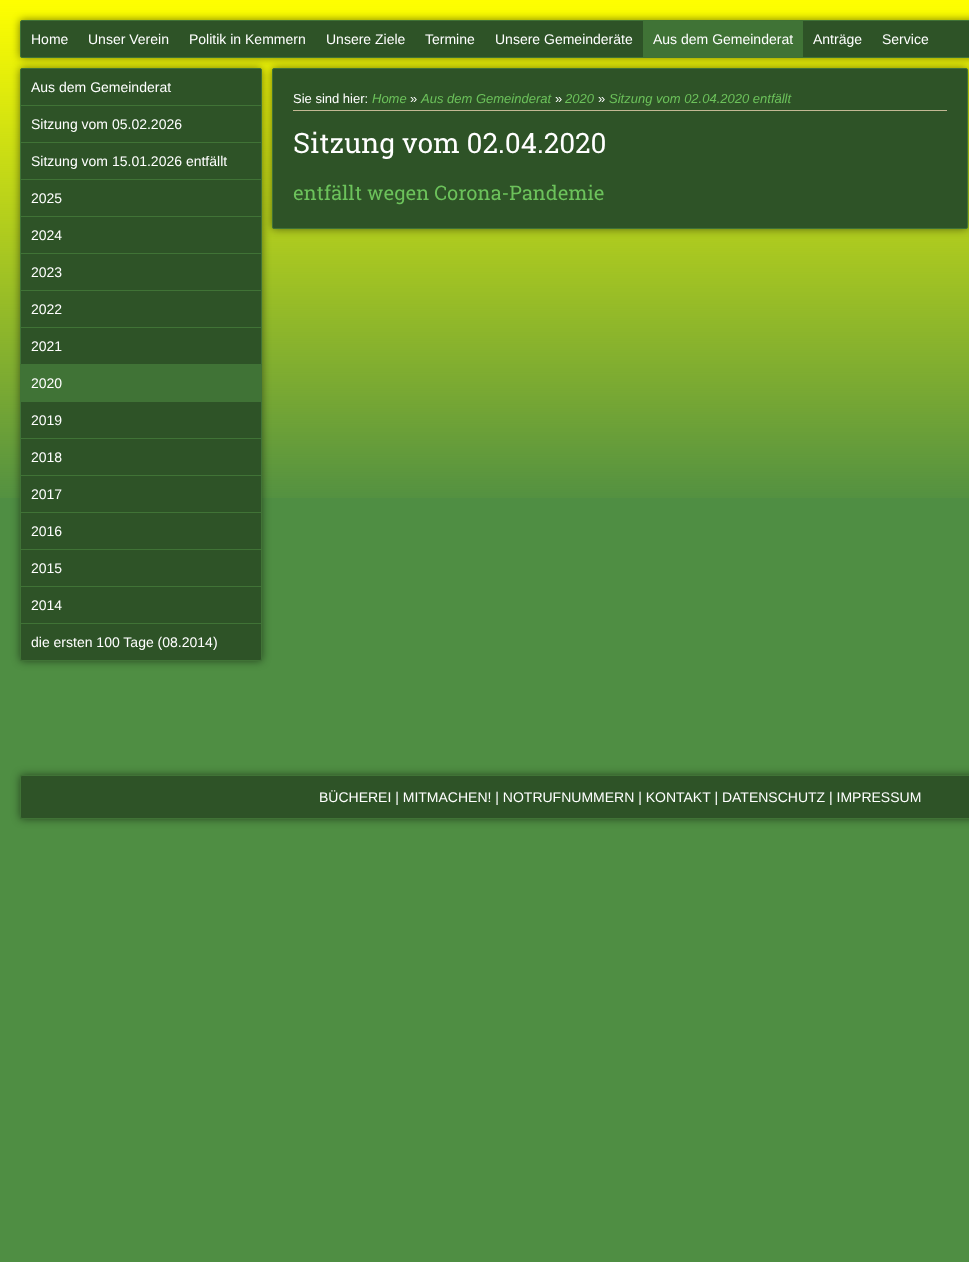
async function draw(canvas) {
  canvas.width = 969
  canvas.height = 1262
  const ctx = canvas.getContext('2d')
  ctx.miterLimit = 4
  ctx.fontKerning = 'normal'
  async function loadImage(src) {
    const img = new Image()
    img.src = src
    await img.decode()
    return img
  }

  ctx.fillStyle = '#4f8e43'
  ctx.fillRect(0, 0, 969, 1262)
  ctx.drawImage(await loadImage('image0.png'), 0, 0, 969, 498)
  ctx.fillStyle = '#00000080'
  ctx.filter = 'blur(4px)'
  ctx.beginPath()
  ctx.roundRect(20, 68, 242, 593, 2)
  ctx.fill()
  ctx.filter = 'none'
  ctx.fillStyle = '#2e5327'
  ctx.beginPath()
  ctx.roundRect(20.5, 68.5, 241, 592, 1.5)
  ctx.fill()
  ctx.strokeStyle = '#407336'
  ctx.stroke()
  ctx.fillStyle = '#00000080'
  ctx.filter = 'blur(4px)'
  ctx.beginPath()
  ctx.roundRect(272, 68, 696, 161, 2)
  ctx.fill()
  ctx.filter = 'none'
  ctx.fillStyle = '#2e5327'
  ctx.beginPath()
  ctx.roundRect(272.5, 68.5, 695, 160, 1.5)
  ctx.fill()
  ctx.stroke()
  ctx.fillStyle = '#00000080'
  ctx.filter = 'blur(4px)'
  ctx.beginPath()
  ctx.roundRect(20, 20, 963, 38, 2)
  ctx.fill()
  ctx.filter = 'none'
  ctx.fillStyle = '#2e5327'
  ctx.beginPath()
  ctx.roundRect(20.5, 20.5, 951, 37, 1.5)
  ctx.fill()
  ctx.stroke()
  ctx.font = '14px Liberation Sans'
  ctx.fillStyle = '#fff'
  ctx.fillText('Home', 31, 44)
  ctx.fillText('Unser Verein', 88, 44)
  ctx.fillText('Politik in Kemmern', 189, 44)
  ctx.fillText('Unsere Ziele', 326, 44)
  ctx.fillText('Termine', 425, 44)
  ctx.fillText('Unsere Gemeinderäte', 495, 44)
  ctx.fillStyle = '#407336'
  ctx.fillRect(643, 21, 160, 36)
  ctx.fillStyle = '#fff'
  ctx.fillText('Aus dem Gemeinderat', 653, 44)
  ctx.fillText('Anträge', 813, 44)
  ctx.fillText('Service', 882, 44)
  ctx.fillText('Aus dem Gemeinderat', 31, 92)
  ctx.fillStyle = '#407336'
  ctx.fillRect(21, 105, 240, 1)
  ctx.fillStyle = '#fff'
  ctx.fillText('Sitzung vom 05.02.2026', 31, 129)
  ctx.fillStyle = '#407336'
  ctx.fillRect(21, 142, 240, 1)
  ctx.fillStyle = '#fff'
  ctx.fillText('Sitzung vom 15.01.2026 entfällt', 31, 166)
  ctx.fillStyle = '#407336'
  ctx.fillRect(21, 179, 240, 1)
  ctx.fillStyle = '#fff'
  ctx.fillText('2025', 31, 203)
  ctx.fillStyle = '#407336'
  ctx.fillRect(21, 216, 240, 1)
  ctx.fillStyle = '#fff'
  ctx.fillText('2024', 31, 240)
  ctx.fillStyle = '#407336'
  ctx.fillRect(21, 253, 240, 1)
  ctx.fillStyle = '#fff'
  ctx.fillText('2023', 31, 277)
  ctx.fillStyle = '#407336'
  ctx.fillRect(21, 290, 240, 1)
  ctx.fillStyle = '#fff'
  ctx.fillText('2022', 31, 314)
  ctx.fillStyle = '#407336'
  ctx.fillRect(21, 327, 240, 1)
  ctx.fillStyle = '#fff'
  ctx.fillText('2021', 31, 351)
  ctx.fillStyle = '#407336'
  ctx.fillRect(21, 364, 240, 38)
  ctx.fillStyle = '#fff'
  ctx.fillText('2020', 31, 388)
  ctx.fillText('2019', 31, 425)
  ctx.fillStyle = '#407336'
  ctx.fillRect(21, 438, 240, 1)
  ctx.fillStyle = '#fff'
  ctx.fillText('2018', 31, 462)
  ctx.fillStyle = '#407336'
  ctx.fillRect(21, 475, 240, 1)
  ctx.fillStyle = '#fff'
  ctx.fillText('2017', 31, 499)
  ctx.fillStyle = '#407336'
  ctx.fillRect(21, 512, 240, 1)
  ctx.fillStyle = '#fff'
  ctx.fillText('2016', 31, 536)
  ctx.fillStyle = '#407336'
  ctx.fillRect(21, 549, 240, 1)
  ctx.fillStyle = '#fff'
  ctx.fillText('2015', 31, 573)
  ctx.fillStyle = '#407336'
  ctx.fillRect(21, 586, 240, 1)
  ctx.fillStyle = '#fff'
  ctx.fillText('2014', 31, 610)
  ctx.fillStyle = '#407336'
  ctx.fillRect(21, 623, 240, 1)
  ctx.fillStyle = '#fff'
  ctx.fillText('die ersten 100 Tage (08.2014)', 31, 647)
  ctx.fillStyle = '#c3b894'
  ctx.fillRect(293, 110, 654, 1)
  ctx.font = '13px Liberation Sans'
  ctx.fillStyle = '#fff'
  ctx.fillText('Sie sind hier:', 293, 103)
  ctx.font = 'italic 13px Liberation Sans'
  ctx.fillStyle = '#6cc25b'
  ctx.fillText('Home', 372, 103)
  ctx.font = '13px Liberation Sans'
  ctx.fillStyle = '#fff'
  ctx.fillText('»', 410, 103)
  ctx.font = 'italic 13px Liberation Sans'
  ctx.fillStyle = '#6cc25b'
  ctx.fillText('Aus dem Gemeinderat', 421, 103)
  ctx.font = '13px Liberation Sans'
  ctx.fillStyle = '#fff'
  ctx.fillText('»', 555, 103)
  ctx.font = 'italic 13px Liberation Sans'
  ctx.fillStyle = '#6cc25b'
  ctx.fillText('2020', 565, 103)
  ctx.font = '13px Liberation Sans'
  ctx.fillStyle = '#fff'
  ctx.fillText('»', 598, 103)
  ctx.font = 'italic 13px Liberation Sans'
  ctx.fillStyle = '#6cc25b'
  ctx.fillText('Sitzung vom 02.04.2020 entfällt', 609, 103)
  ctx.font = '28px Roboto Slab'
  ctx.fillStyle = '#fff'
  ctx.fillText('Sitzung vom 02.04.2020', 293, 153)
  ctx.font = '20px Roboto Slab'
  ctx.fillStyle = '#6cc25b'
  ctx.fillText('entfällt wegen Corona-Pandemie', 293, 200)
  ctx.fillStyle = '#00000080'
  ctx.filter = 'blur(4px)'
  ctx.beginPath()
  ctx.roundRect(20, 775, 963, 44, 2)
  ctx.fill()
  ctx.filter = 'none'
  ctx.fillStyle = '#2e5327'
  ctx.beginPath()
  ctx.roundRect(20.5, 775.5, 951, 43, 1.5)
  ctx.fill()
  ctx.stroke()
  ctx.font = '14px Liberation Sans'
  ctx.fillStyle = '#fff'
  ctx.fillText('BÜCHEREI | MITMACHEN! | NOTRUFNUMMERN | KONTAKT | DATENSCHUTZ | IMPRESSUM', 319, 802)
}

draw(document.querySelector('canvas'))
